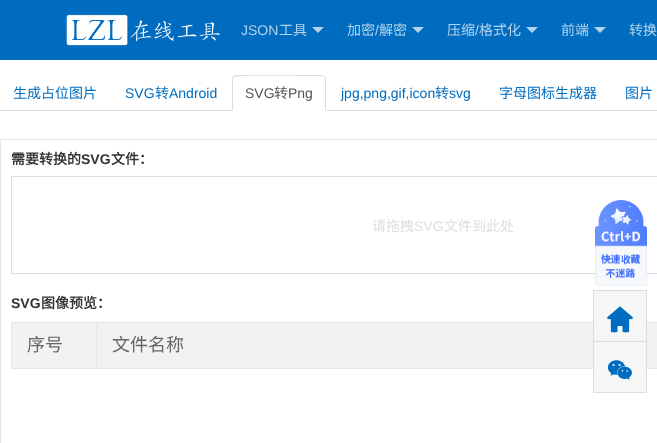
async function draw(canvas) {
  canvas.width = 657
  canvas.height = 443
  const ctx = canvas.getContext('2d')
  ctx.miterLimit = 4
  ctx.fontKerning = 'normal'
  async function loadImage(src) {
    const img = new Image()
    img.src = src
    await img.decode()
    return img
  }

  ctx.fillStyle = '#fff'
  ctx.fillRect(0, 0, 657, 443)
  ctx.fillStyle = '#006cbf'
  ctx.fillRect(0, 0, 657, 60)
  ctx.drawImage(await loadImage('image0.png'), 66, 14, 154, 32)
  ctx.font = '14px Liberation Sans'
  ctx.fillStyle = '#b3d3ec'
  ctx.fillText('JSON', 241, 35)
  ctx.font = '14px Noto Sans CJK SC'
  ctx.fillText('工具', 279, 35)
  ctx.beginPath()
  ctx.moveTo(312, 27)
  ctx.lineTo(324, 27)
  ctx.lineTo(318, 33)
  ctx.closePath()
  ctx.fill()
  ctx.fillText('加密', 347, 35)
  ctx.font = '14px Liberation Sans'
  ctx.fillText('/', 375, 35)
  ctx.font = '14px Noto Sans CJK SC'
  ctx.fillText('解密', 379, 35)
  ctx.beginPath()
  ctx.moveTo(412, 27)
  ctx.lineTo(424, 27)
  ctx.lineTo(418, 33)
  ctx.closePath()
  ctx.fill()
  ctx.fillText('压缩', 447, 35)
  ctx.font = '14px Liberation Sans'
  ctx.fillText('/', 475, 35)
  ctx.font = '14px Noto Sans CJK SC'
  ctx.fillText('格式化', 479, 35)
  ctx.beginPath()
  ctx.moveTo(526, 27)
  ctx.lineTo(538, 27)
  ctx.lineTo(532, 33)
  ctx.closePath()
  ctx.fill()
  ctx.fillText('前端', 561, 35)
  ctx.beginPath()
  ctx.moveTo(594, 27)
  ctx.lineTo(606, 27)
  ctx.lineTo(600, 33)
  ctx.closePath()
  ctx.fill()
  ctx.fillText('转换', 629, 35)
  ctx.fillStyle = '#ddd'
  ctx.fillRect(0, 110, 657, 1)
  ctx.fillStyle = '#006cbf'
  ctx.fillText('生成占位图片', 13, 98)
  ctx.font = '14px Liberation Sans'
  ctx.fillText('SVG', 125, 98)
  ctx.font = '14px Noto Sans CJK SC'
  ctx.fillText('转', 155, 98)
  ctx.font = '14px Liberation Sans'
  ctx.fillText('Android', 169, 98)
  ctx.fillStyle = '#fff'
  ctx.beginPath()
  ctx.roundRect(232, 75, 94, 36, [4, 4, 0, 0])
  ctx.fill()
  ctx.fillStyle = '#ddd'
  ctx.beginPath()
  ctx.moveTo(236, 75)
  ctx.lineTo(233, 76)
  ctx.lineTo(234, 77)
  ctx.bezierCurveTo(236, 75, 300, 76, 308, 76)
  ctx.lineTo(322, 76)
  ctx.lineTo(324, 77)
  ctx.lineTo(325, 76)
  ctx.lineTo(322, 75)
  ctx.closePath()
  ctx.fill()
  ctx.beginPath()
  ctx.moveTo(326, 111)
  ctx.lineTo(326, 79)
  ctx.bezierCurveTo(326, 78, 325.5, 77, 325, 76)
  ctx.lineTo(324, 77)
  ctx.bezierCurveTo(325, 77, 325, 78, 325, 79)
  ctx.lineTo(325, 110)
  ctx.closePath()
  ctx.fill()
  ctx.beginPath()
  ctx.moveTo(232, 111)
  ctx.lineTo(233, 110)
  ctx.lineTo(233, 79)
  ctx.bezierCurveTo(233, 78, 233, 77, 234, 77)
  ctx.lineTo(233, 76)
  ctx.bezierCurveTo(232.5, 77, 232, 78, 232, 79)
  ctx.closePath()
  ctx.fill()
  ctx.fillStyle = '#555'
  ctx.fillText('SVG', 245, 98)
  ctx.font = '14px Noto Sans CJK SC'
  ctx.fillText('转', 274, 98)
  ctx.font = '14px Liberation Sans'
  ctx.fillText('Png', 288, 98)
  ctx.fillStyle = '#006cbf'
  ctx.fillText('jpg,png,gif,icon', 341, 98)
  ctx.font = '14px Noto Sans CJK SC'
  ctx.fillText('转', 435, 98)
  ctx.font = '14px Liberation Sans'
  ctx.fillText('svg', 449, 98)
  ctx.font = '14px Noto Sans CJK SC'
  ctx.fillText('字母图标生成器', 499, 98)
  ctx.fillText('图片', 625, 98)
  ctx.beginPath()
  ctx.roundRect(0.5, 139.5, 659, 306, 1.5)
  ctx.strokeStyle = '#e6e6e6'
  ctx.stroke()
  ctx.font = 'bold 14px Noto Sans CJK SC'
  ctx.fillStyle = '#333'
  ctx.fillText('需要转换的', 11, 164)
  ctx.font = 'bold 14px Liberation Sans'
  ctx.fillText('SVG', 81, 164)
  ctx.font = 'bold 14px Noto Sans CJK SC'
  ctx.fillText('文件：', 111, 164)
  ctx.strokeStyle = '#ddd'
  ctx.strokeRect(11.5, 176.5, 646, 97)
  ctx.font = '14px Noto Sans CJK SC'
  ctx.fillStyle = '#ddd'
  ctx.fillText('请拖拽', 372, 231)
  ctx.font = '14px Liberation Sans'
  ctx.fillText('SVG', 414, 231)
  ctx.font = '14px Noto Sans CJK SC'
  ctx.fillText('文件到此处', 444, 231)
  ctx.font = 'bold 14px Liberation Sans'
  ctx.fillStyle = '#333'
  ctx.fillText('SVG', 11, 308)
  ctx.font = 'bold 14px Noto Sans CJK SC'
  ctx.fillText('图像预览：', 41, 308)
  ctx.fillStyle = '#f2f2f2'
  ctx.fillRect(12, 323, 645, 45)
  ctx.fillStyle = '#e6e6e6'
  ctx.fillRect(96, 322, 497, 1)
  ctx.fillRect(96, 368, 497, 1)
  ctx.fillRect(96, 322, 1, 47)
  ctx.fillRect(11, 322, 86, 1)
  ctx.fillRect(11, 368, 86, 1)
  ctx.fillRect(11, 322, 1, 47)
  ctx.font = '18px Noto Sans CJK SC'
  ctx.fillStyle = '#666'
  ctx.fillText('序号', 27, 351)
  ctx.fillText('文件名称', 112, 351)
  ctx.fillStyle = '#e6e6e6'
  ctx.fillRect(646, 322, 11, 1)
  ctx.fillRect(646, 368, 11, 1)
  ctx.drawImage(await loadImage('image1.png'), 595, 200, 52, 86)
  ctx.fillStyle = '#ddd'
  ctx.fillRect(593, 290, 54, 1)
  ctx.fillRect(646, 290, 1, 103)
  ctx.fillRect(593, 290, 1, 103)
  ctx.fillStyle = '#f6f6f6'
  ctx.fillRect(594, 291, 52, 50)
  ctx.fillStyle = '#ddd'
  ctx.fillRect(594, 341, 52, 1)
  ctx.drawImage(await loadImage('image2.png'), 607, 306, 26, 27)
  ctx.fillStyle = '#f6f6f6'
  ctx.fillRect(594, 342, 52, 50)
  ctx.fillStyle = '#ddd'
  ctx.fillRect(594, 392, 52, 1)
  ctx.drawImage(await loadImage('image3.png'), 607, 360, 25, 20)
}

draw(document.querySelector('canvas'))
